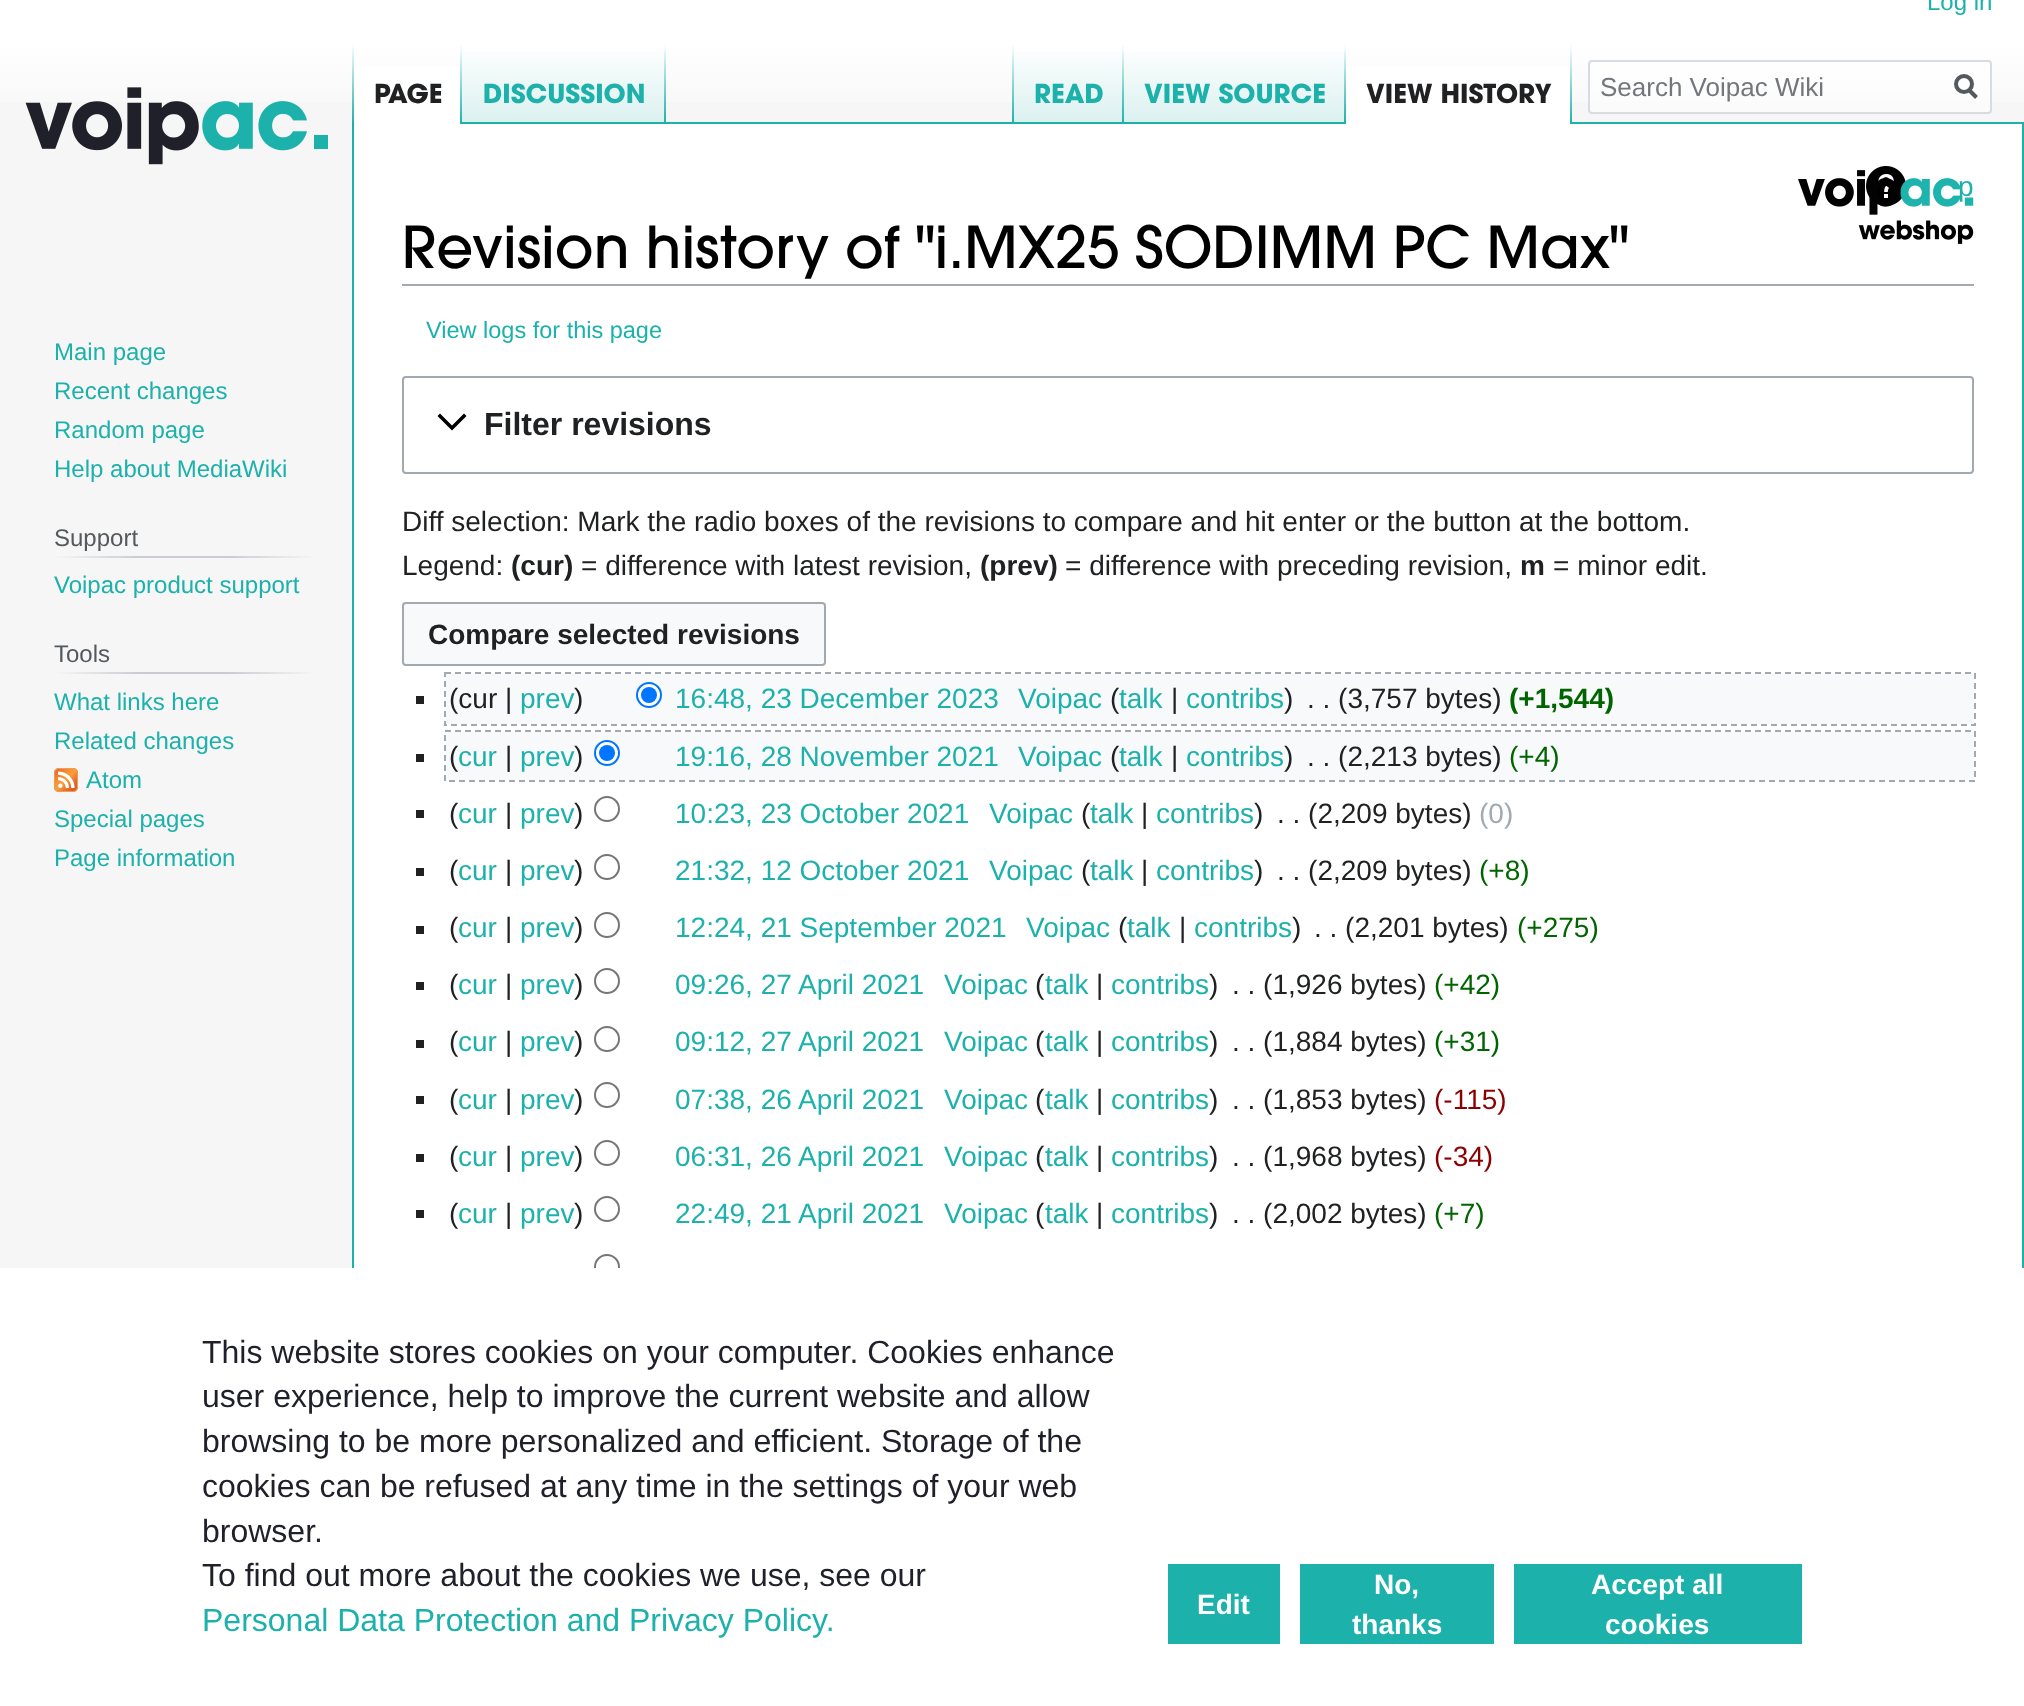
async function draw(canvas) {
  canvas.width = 2024
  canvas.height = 1706
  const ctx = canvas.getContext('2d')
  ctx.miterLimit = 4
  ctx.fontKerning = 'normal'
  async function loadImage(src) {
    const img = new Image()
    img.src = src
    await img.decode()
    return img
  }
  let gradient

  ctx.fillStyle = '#f6f6f6'
  ctx.fillRect(0, 0, 2024, 1706)
  gradient = ctx.createLinearGradient(1012, -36, 1012, 124)
  gradient.addColorStop(0.5, '#fff')
  gradient.addColorStop(1, '#f6f6f6')
  ctx.fillStyle = gradient
  ctx.fillRect(0, 0, 2024, 102)
  ctx.font = '24px Liberation Sans'
  ctx.fillStyle = '#1db1ac'
  ctx.fillText('Log in', 1927, 10)
  ctx.fillStyle = '#fff'
  ctx.fillRect(354, 124, 1668, 1144)
  ctx.strokeStyle = '#1db1ac'
  ctx.lineWidth = 2
  ctx.strokeRect(353, 123, 1670, 1554)
  gradient = ctx.createLinearGradient(353, 44, 353, 124)
  gradient.addColorStop(0, '#1db1ac00')
  gradient.addColorStop(1, '#1db1ac')
  ctx.fillStyle = gradient
  ctx.fillRect(352, 44, 2, 80)
  ctx.fillStyle = '#fff'
  ctx.fillRect(354, 66, 106, 58)
  gradient = ctx.createLinearGradient(461, 44, 461, 124)
  gradient.addColorStop(0, '#fff')
  gradient.addColorStop(1, '#1db1ac')
  ctx.fillStyle = gradient
  ctx.fillRect(460, 44, 2, 80)
  ctx.font = 'bold 26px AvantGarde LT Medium'
  ctx.fillStyle = '#202122'
  ctx.fillText('PAGE', 374, 103)
  gradient = ctx.createLinearGradient(564, 124, 564, 44)
  gradient.addColorStop(0.03, '#1db1ac')
  gradient.addColorStop(0.03, '#dbf1f0')
  gradient.addColorStop(1, '#fff')
  ctx.fillStyle = gradient
  ctx.fillRect(462, 52, 204, 70)
  gradient = ctx.createLinearGradient(665, 44, 665, 124)
  gradient.addColorStop(0, '#1db1ac00')
  gradient.addColorStop(1, '#1db1ac')
  ctx.fillStyle = gradient
  ctx.fillRect(664, 44, 2, 80)
  ctx.fillStyle = '#1db1ac'
  ctx.fillText('DISCUSSION', 483, 103)
  gradient = ctx.createLinearGradient(1013, 44, 1013, 124)
  gradient.addColorStop(0, '#1db1ac00')
  gradient.addColorStop(1, '#1db1ac')
  ctx.fillStyle = gradient
  ctx.fillRect(1012, 44, 2, 80)
  gradient = ctx.createLinearGradient(1069, 124, 1069, 44)
  gradient.addColorStop(0.03, '#1db1ac')
  gradient.addColorStop(0.03, '#dbf1f0')
  gradient.addColorStop(1, '#fff')
  ctx.fillStyle = gradient
  ctx.fillRect(1014, 52, 110, 70)
  gradient = ctx.createLinearGradient(1123, 44, 1123, 124)
  gradient.addColorStop(0, '#1db1ac00')
  gradient.addColorStop(1, '#1db1ac')
  ctx.fillStyle = gradient
  ctx.fillRect(1122, 44, 2, 80)
  ctx.fillStyle = '#1db1ac'
  ctx.fillText('READ', 1034, 103)
  gradient = ctx.createLinearGradient(1235, 124, 1235, 44)
  gradient.addColorStop(0.03, '#1db1ac')
  gradient.addColorStop(0.03, '#dbf1f0')
  gradient.addColorStop(1, '#fff')
  ctx.fillStyle = gradient
  ctx.fillRect(1124, 52, 222, 70)
  gradient = ctx.createLinearGradient(1345, 44, 1345, 124)
  gradient.addColorStop(0, '#1db1ac00')
  gradient.addColorStop(1, '#1db1ac')
  ctx.fillStyle = gradient
  ctx.fillRect(1344, 44, 2, 80)
  ctx.fillStyle = '#1db1ac'
  ctx.fillText('VIEW SOURCE', 1144, 103)
  ctx.fillStyle = '#fff'
  ctx.fillRect(1346, 66, 224, 58)
  gradient = ctx.createLinearGradient(1571, 44, 1571, 124)
  gradient.addColorStop(0, '#fff')
  gradient.addColorStop(1, '#1db1ac')
  ctx.fillStyle = gradient
  ctx.fillRect(1570, 44, 2, 80)
  ctx.fillStyle = '#202122'
  ctx.fillText('VIEW HISTORY', 1366, 103)
  ctx.fillStyle = '#ffffff80'
  ctx.beginPath()
  ctx.roundRect(1589, 61, 402, 52, 3)
  ctx.fill()
  ctx.strokeStyle = '#d6dce2'
  ctx.stroke()
  ctx.font = '26px Liberation Sans'
  ctx.fillStyle = '#72777d'
  ctx.fillText('Search Voipac Wiki', 1600, 96)
  ctx.beginPath()
  ctx.moveTo(1976.5, 97.5)
  ctx.lineTo(1968.5, 89.5)
  ctx.strokeStyle = '#54595d'
  ctx.lineWidth = 4
  ctx.stroke()
  ctx.beginPath()
  ctx.arc(1964, 84, 8, 0, 2 * Math.PI)
  ctx.stroke()
  ctx.drawImage(await loadImage('image0.png'), 25, 87, 303, 78)
  ctx.font = '24px Liberation Sans'
  ctx.fillStyle = '#1db1ac'
  ctx.fillText('Main page', 54, 360)
  ctx.fillText('Recent changes', 54, 399)
  ctx.fillText('Random page', 54, 438)
  ctx.fillText('Help about MediaWiki', 54, 477)
  gradient = ctx.createLinearGradient(54, 557, 316, 557)
  gradient.addColorStop(0, '#f6f6f6')
  gradient.addColorStop(0.33, '#c8ccd1')
  gradient.addColorStop(0.66, '#c8ccd1')
  gradient.addColorStop(1, '#f6f6f6')
  ctx.fillStyle = gradient
  ctx.fillRect(54, 556, 262, 2)
  ctx.fillStyle = '#54595d'
  ctx.fillText('Support', 54, 546)
  ctx.fillStyle = '#1db1ac'
  ctx.fillText('Voipac product support', 54, 593)
  gradient = ctx.createLinearGradient(54, 673, 316, 673)
  gradient.addColorStop(0, '#f6f6f6')
  gradient.addColorStop(0.33, '#c8ccd1')
  gradient.addColorStop(0.66, '#c8ccd1')
  gradient.addColorStop(1, '#f6f6f6')
  ctx.fillStyle = gradient
  ctx.fillRect(54, 672, 262, 2)
  ctx.fillStyle = '#54595d'
  ctx.fillText('Tools', 54, 662)
  ctx.fillStyle = '#1db1ac'
  ctx.fillText('What links here', 54, 710)
  ctx.fillText('Related changes', 54, 749)
  ctx.drawImage(await loadImage('image1.png'), 54, 768, 24, 24)
  ctx.fillText('Atom', 86, 788)
  ctx.fillText('Special pages', 54, 827)
  ctx.fillText('Page information', 54, 866)
  ctx.drawImage(await loadImage('image2.png'), 1866, 166, 40, 40)
  ctx.font = '28px Liberation Sans'
  ctx.fillText('p', 1958, 196)
  ctx.fillStyle = '#a2a9b1'
  ctx.fillRect(402, 284, 1572, 2)
  ctx.drawImage(await loadImage('image3.png'), 1798, 170, 176, 74)
  ctx.font = '500 57.6px AvantGarde LT Medium'
  ctx.fillStyle = '#000'
  ctx.fillText('Revision history of "i.MX25 SODIMM PC Max"', 402, 268)
  ctx.font = '23.5px Liberation Sans'
  ctx.fillStyle = '#1db1ac'
  ctx.fillText('View logs for this page', 426, 338)
  ctx.beginPath()
  ctx.roundRect(403, 377, 1570, 96, 3)
  ctx.strokeStyle = '#a2a9b1'
  ctx.lineWidth = 2
  ctx.stroke()
  ctx.fillStyle = '#000'
  ctx.beginPath()
  ctx.moveTo(464, 413.5)
  ctx.lineTo(452, 425.5)
  ctx.lineTo(440, 413.5)
  ctx.lineTo(437.5, 416)
  ctx.lineTo(452, 430.5)
  ctx.lineTo(466.5, 416)
  ctx.closePath()
  ctx.fill()
  ctx.font = 'bold 32px Liberation Sans'
  ctx.fillStyle = '#202122'
  ctx.fillText('Filter revisions', 484, 435)
  ctx.font = '28px Liberation Sans'
  ctx.fillText('Diff selection: Mark the radio boxes of the revisions to compare and hit enter or the button at the bottom.', 402, 531)
  ctx.fillText('Legend:', 402, 575)
  ctx.font = 'bold 28px Liberation Sans'
  ctx.fillText('(cur)', 511, 575)
  ctx.font = '28px Liberation Sans'
  ctx.fillText('= difference with latest revision,', 581, 575)
  ctx.font = 'bold 28px Liberation Sans'
  ctx.fillText('(prev)', 980, 575)
  ctx.font = '28px Liberation Sans'
  ctx.fillText('= difference with preceding revision,', 1065, 575)
  ctx.font = 'bold 28px Liberation Sans'
  ctx.fillText('m', 1520, 575)
  ctx.font = '28px Liberation Sans'
  ctx.fillText('= minor edit.', 1553, 575)
  ctx.fillStyle = '#f8f9fa'
  ctx.beginPath()
  ctx.roundRect(403, 603, 422, 62, 3)
  ctx.fill()
  ctx.stroke()
  ctx.font = 'bold 28px Liberation Sans'
  ctx.fillStyle = '#202122'
  ctx.fillText('Compare selected revisions', 428, 644)
  ctx.fillStyle = '#f8f9fa'
  ctx.fillRect(446, 674, 1528, 50)
  ctx.font = '28px Liberation Sans'
  ctx.fillStyle = '#202122'
  ctx.fillText('(cur |', 449, 708)
  ctx.fillStyle = '#1db1ac'
  ctx.fillText('prev', 520, 708)
  ctx.fillStyle = '#202122'
  ctx.fillText(')', 574, 708)
  ctx.fillStyle = '#fff'
  ctx.beginPath()
  ctx.arc(649, 695, 12, 0, 2 * Math.PI)
  ctx.fill()
  ctx.strokeStyle = '#0075ff'
  ctx.stroke()
  ctx.fillStyle = '#0075ff'
  ctx.beginPath()
  ctx.arc(649, 695, 8, 0, 2 * Math.PI)
  ctx.fill()
  ctx.fillStyle = '#1db1ac'
  ctx.fillText('16:48, 23 December 2023', 675, 708)
  ctx.fillText('Voipac', 1018, 708)
  ctx.fillStyle = '#202122'
  ctx.fillText('(', 1110, 708)
  ctx.fillStyle = '#1db1ac'
  ctx.fillText('talk', 1119, 708)
  ctx.fillStyle = '#202122'
  ctx.fillText('|', 1171, 708)
  ctx.fillStyle = '#1db1ac'
  ctx.fillText('contribs', 1186, 708)
  ctx.fillStyle = '#202122'
  ctx.fillText(')', 1284, 708)
  ctx.fillText('. . (3,757 bytes)', 1307, 708)
  ctx.font = 'bold 28px Liberation Sans'
  ctx.fillStyle = '#006400'
  ctx.fillText('(+1,544)', 1509, 708)
  ctx.beginPath()
  ctx.moveTo(445, 673)
  ctx.lineTo(1975, 673)
  ctx.lineTo(1975, 725)
  ctx.lineTo(445, 725)
  ctx.closePath()
  ctx.strokeStyle = '#a2a9b1'
  ctx.setLineDash([6, 4])
  ctx.stroke()
  ctx.fillStyle = '#202122'
  ctx.fillRect(416, 696, 8, 8)
  ctx.fillStyle = '#f8f9fa'
  ctx.fillRect(446, 732, 1528, 48)
  ctx.font = '28px Liberation Sans'
  ctx.fillStyle = '#202122'
  ctx.fillText('(', 449, 766)
  ctx.fillStyle = '#1db1ac'
  ctx.fillText('cur', 458, 766)
  ctx.fillStyle = '#202122'
  ctx.fillText('|', 505, 766)
  ctx.fillStyle = '#1db1ac'
  ctx.fillText('prev', 520, 766)
  ctx.fillStyle = '#202122'
  ctx.fillText(')', 574, 766)
  ctx.fillStyle = '#fff'
  ctx.beginPath()
  ctx.arc(607, 753, 12, 0, 2 * Math.PI)
  ctx.fill()
  ctx.strokeStyle = '#0075ff'
  ctx.setLineDash([])
  ctx.stroke()
  ctx.fillStyle = '#0075ff'
  ctx.beginPath()
  ctx.arc(607, 753, 8, 0, 2 * Math.PI)
  ctx.fill()
  ctx.fillStyle = '#1db1ac'
  ctx.fillText('19:16, 28 November 2021', 675, 766)
  ctx.fillText('Voipac', 1018, 766)
  ctx.fillStyle = '#202122'
  ctx.fillText('(', 1110, 766)
  ctx.fillStyle = '#1db1ac'
  ctx.fillText('talk', 1119, 766)
  ctx.fillStyle = '#202122'
  ctx.fillText('|', 1171, 766)
  ctx.fillStyle = '#1db1ac'
  ctx.fillText('contribs', 1186, 766)
  ctx.fillStyle = '#202122'
  ctx.fillText(')', 1284, 766)
  ctx.fillText('. . (2,213 bytes)', 1307, 766)
  ctx.fillStyle = '#006400'
  ctx.fillText('(+4)', 1509, 766)
  ctx.beginPath()
  ctx.moveTo(445, 731)
  ctx.lineTo(1975, 731)
  ctx.lineTo(1975, 781)
  ctx.lineTo(445, 781)
  ctx.closePath()
  ctx.strokeStyle = '#a2a9b1'
  ctx.setLineDash([6, 4])
  ctx.stroke()
  ctx.fillStyle = '#202122'
  ctx.fillRect(416, 754, 8, 8)
  ctx.fillRect(416, 810, 8, 8)
  ctx.fillText('(', 449, 823)
  ctx.fillStyle = '#1db1ac'
  ctx.fillText('cur', 458, 823)
  ctx.fillStyle = '#202122'
  ctx.fillText('|', 505, 823)
  ctx.fillStyle = '#1db1ac'
  ctx.fillText('prev', 520, 823)
  ctx.fillStyle = '#202122'
  ctx.fillText(')', 574, 823)
  ctx.beginPath()
  ctx.arc(607, 809, 12, 0, 2 * Math.PI)
  ctx.strokeStyle = '#767676'
  ctx.setLineDash([])
  ctx.stroke()
  ctx.fillStyle = '#1db1ac'
  ctx.fillText('10:23, 23 October 2021', 675, 823)
  ctx.fillText('Voipac', 989, 823)
  ctx.fillStyle = '#202122'
  ctx.fillText('(', 1081, 823)
  ctx.fillStyle = '#1db1ac'
  ctx.fillText('talk', 1090, 823)
  ctx.fillStyle = '#202122'
  ctx.fillText('|', 1141, 823)
  ctx.fillStyle = '#1db1ac'
  ctx.fillText('contribs', 1156, 823)
  ctx.fillStyle = '#202122'
  ctx.fillText(')', 1254, 823)
  ctx.fillText('. . (2,209 bytes)', 1277, 823)
  ctx.fillStyle = '#a2a9b1'
  ctx.fillText('(0)', 1479, 823)
  ctx.fillStyle = '#202122'
  ctx.fillRect(416, 868, 8, 8)
  ctx.fillText('(', 449, 880)
  ctx.fillStyle = '#1db1ac'
  ctx.fillText('cur', 458, 880)
  ctx.fillStyle = '#202122'
  ctx.fillText('|', 505, 880)
  ctx.fillStyle = '#1db1ac'
  ctx.fillText('prev', 520, 880)
  ctx.fillStyle = '#202122'
  ctx.fillText(')', 574, 880)
  ctx.beginPath()
  ctx.arc(607, 867, 12, 0, 2 * Math.PI)
  ctx.stroke()
  ctx.fillStyle = '#1db1ac'
  ctx.fillText('21:32, 12 October 2021', 675, 880)
  ctx.fillText('Voipac', 989, 880)
  ctx.fillStyle = '#202122'
  ctx.fillText('(', 1081, 880)
  ctx.fillStyle = '#1db1ac'
  ctx.fillText('talk', 1090, 880)
  ctx.fillStyle = '#202122'
  ctx.fillText('|', 1141, 880)
  ctx.fillStyle = '#1db1ac'
  ctx.fillText('contribs', 1156, 880)
  ctx.fillStyle = '#202122'
  ctx.fillText(')', 1254, 880)
  ctx.fillText('. . (2,209 bytes)', 1277, 880)
  ctx.fillStyle = '#006400'
  ctx.fillText('(+8)', 1479, 880)
  ctx.fillStyle = '#202122'
  ctx.fillRect(416, 926, 8, 8)
  ctx.fillText('(', 449, 937)
  ctx.fillStyle = '#1db1ac'
  ctx.fillText('cur', 458, 937)
  ctx.fillStyle = '#202122'
  ctx.fillText('|', 505, 937)
  ctx.fillStyle = '#1db1ac'
  ctx.fillText('prev', 520, 937)
  ctx.fillStyle = '#202122'
  ctx.fillText(')', 574, 937)
  ctx.beginPath()
  ctx.arc(607, 925, 12, 0, 2 * Math.PI)
  ctx.stroke()
  ctx.fillStyle = '#1db1ac'
  ctx.fillText('12:24, 21 September 2021', 675, 937)
  ctx.fillText('Voipac', 1026, 937)
  ctx.fillStyle = '#202122'
  ctx.fillText('(', 1118, 937)
  ctx.fillStyle = '#1db1ac'
  ctx.fillText('talk', 1127, 937)
  ctx.fillStyle = '#202122'
  ctx.fillText('|', 1179, 937)
  ctx.fillStyle = '#1db1ac'
  ctx.fillText('contribs', 1194, 937)
  ctx.fillStyle = '#202122'
  ctx.fillText(')', 1292, 937)
  ctx.fillText('. . (2,201 bytes)', 1314, 937)
  ctx.fillStyle = '#006400'
  ctx.fillText('(+275)', 1517, 937)
  ctx.fillStyle = '#202122'
  ctx.fillRect(416, 982, 8, 8)
  ctx.fillText('(', 449, 994)
  ctx.fillStyle = '#1db1ac'
  ctx.fillText('cur', 458, 994)
  ctx.fillStyle = '#202122'
  ctx.fillText('|', 505, 994)
  ctx.fillStyle = '#1db1ac'
  ctx.fillText('prev', 520, 994)
  ctx.fillStyle = '#202122'
  ctx.fillText(')', 574, 994)
  ctx.beginPath()
  ctx.arc(607, 981, 12, 0, 2 * Math.PI)
  ctx.stroke()
  ctx.fillStyle = '#1db1ac'
  ctx.fillText('09:26, 27 April 2021', 675, 994)
  ctx.fillText('Voipac', 944, 994)
  ctx.fillStyle = '#202122'
  ctx.fillText('(', 1035, 994)
  ctx.fillStyle = '#1db1ac'
  ctx.fillText('talk', 1045, 994)
  ctx.fillStyle = '#202122'
  ctx.fillText('|', 1096, 994)
  ctx.fillStyle = '#1db1ac'
  ctx.fillText('contribs', 1111, 994)
  ctx.fillStyle = '#202122'
  ctx.fillText(')', 1209, 994)
  ctx.fillText('. . (1,926 bytes)', 1232, 994)
  ctx.fillStyle = '#006400'
  ctx.fillText('(+42)', 1434, 994)
  ctx.fillStyle = '#202122'
  ctx.fillRect(416, 1040, 8, 8)
  ctx.fillText('(', 449, 1051)
  ctx.fillStyle = '#1db1ac'
  ctx.fillText('cur', 458, 1051)
  ctx.fillStyle = '#202122'
  ctx.fillText('|', 505, 1051)
  ctx.fillStyle = '#1db1ac'
  ctx.fillText('prev', 520, 1051)
  ctx.fillStyle = '#202122'
  ctx.fillText(')', 574, 1051)
  ctx.beginPath()
  ctx.arc(607, 1039, 12, 0, 2 * Math.PI)
  ctx.stroke()
  ctx.fillStyle = '#1db1ac'
  ctx.fillText('09:12, 27 April 2021', 675, 1051)
  ctx.fillText('Voipac', 944, 1051)
  ctx.fillStyle = '#202122'
  ctx.fillText('(', 1035, 1051)
  ctx.fillStyle = '#1db1ac'
  ctx.fillText('talk', 1045, 1051)
  ctx.fillStyle = '#202122'
  ctx.fillText('|', 1096, 1051)
  ctx.fillStyle = '#1db1ac'
  ctx.fillText('contribs', 1111, 1051)
  ctx.fillStyle = '#202122'
  ctx.fillText(')', 1209, 1051)
  ctx.fillText('. . (1,884 bytes)', 1232, 1051)
  ctx.fillStyle = '#006400'
  ctx.fillText('(+31)', 1434, 1051)
  ctx.fillStyle = '#202122'
  ctx.fillRect(416, 1096, 8, 8)
  ctx.fillText('(', 449, 1109)
  ctx.fillStyle = '#1db1ac'
  ctx.fillText('cur', 458, 1109)
  ctx.fillStyle = '#202122'
  ctx.fillText('|', 505, 1109)
  ctx.fillStyle = '#1db1ac'
  ctx.fillText('prev', 520, 1109)
  ctx.fillStyle = '#202122'
  ctx.fillText(')', 574, 1109)
  ctx.beginPath()
  ctx.arc(607, 1095, 12, 0, 2 * Math.PI)
  ctx.stroke()
  ctx.fillStyle = '#1db1ac'
  ctx.fillText('07:38, 26 April 2021', 675, 1109)
  ctx.fillText('Voipac', 944, 1109)
  ctx.fillStyle = '#202122'
  ctx.fillText('(', 1035, 1109)
  ctx.fillStyle = '#1db1ac'
  ctx.fillText('talk', 1045, 1109)
  ctx.fillStyle = '#202122'
  ctx.fillText('|', 1096, 1109)
  ctx.fillStyle = '#1db1ac'
  ctx.fillText('contribs', 1111, 1109)
  ctx.fillStyle = '#202122'
  ctx.fillText(')', 1209, 1109)
  ctx.fillText('. . (1,853 bytes)', 1232, 1109)
  ctx.fillStyle = '#8b0000'
  ctx.fillText('(-115)', 1434, 1109)
  ctx.fillStyle = '#202122'
  ctx.fillRect(416, 1154, 8, 8)
  ctx.fillText('(', 449, 1166)
  ctx.fillStyle = '#1db1ac'
  ctx.fillText('cur', 458, 1166)
  ctx.fillStyle = '#202122'
  ctx.fillText('|', 505, 1166)
  ctx.fillStyle = '#1db1ac'
  ctx.fillText('prev', 520, 1166)
  ctx.fillStyle = '#202122'
  ctx.fillText(')', 574, 1166)
  ctx.beginPath()
  ctx.arc(607, 1153, 12, 0, 2 * Math.PI)
  ctx.stroke()
  ctx.fillStyle = '#1db1ac'
  ctx.fillText('06:31, 26 April 2021', 675, 1166)
  ctx.fillText('Voipac', 944, 1166)
  ctx.fillStyle = '#202122'
  ctx.fillText('(', 1035, 1166)
  ctx.fillStyle = '#1db1ac'
  ctx.fillText('talk', 1045, 1166)
  ctx.fillStyle = '#202122'
  ctx.fillText('|', 1096, 1166)
  ctx.fillStyle = '#1db1ac'
  ctx.fillText('contribs', 1111, 1166)
  ctx.fillStyle = '#202122'
  ctx.fillText(')', 1209, 1166)
  ctx.fillText('. . (1,968 bytes)', 1232, 1166)
  ctx.fillStyle = '#8b0000'
  ctx.fillText('(-34)', 1434, 1166)
  ctx.fillStyle = '#202122'
  ctx.fillRect(416, 1210, 8, 8)
  ctx.fillText('(', 449, 1223)
  ctx.fillStyle = '#1db1ac'
  ctx.fillText('cur', 458, 1223)
  ctx.fillStyle = '#202122'
  ctx.fillText('|', 505, 1223)
  ctx.fillStyle = '#1db1ac'
  ctx.fillText('prev', 520, 1223)
  ctx.fillStyle = '#202122'
  ctx.fillText(')', 574, 1223)
  ctx.beginPath()
  ctx.arc(607, 1209, 12, 0, 2 * Math.PI)
  ctx.stroke()
  ctx.fillStyle = '#1db1ac'
  ctx.fillText('22:49, 21 April 2021', 675, 1223)
  ctx.fillText('Voipac', 944, 1223)
  ctx.fillStyle = '#202122'
  ctx.fillText('(', 1035, 1223)
  ctx.fillStyle = '#1db1ac'
  ctx.fillText('talk', 1045, 1223)
  ctx.fillStyle = '#202122'
  ctx.fillText('|', 1096, 1223)
  ctx.fillStyle = '#1db1ac'
  ctx.fillText('contribs', 1111, 1223)
  ctx.fillStyle = '#202122'
  ctx.fillText(')', 1209, 1223)
  ctx.fillText('. . (2,002 bytes)', 1232, 1223)
  ctx.fillStyle = '#006400'
  ctx.fillText('(+7)', 1434, 1223)
  ctx.beginPath()
  ctx.arc(607, 1267, 12, 0, 2 * Math.PI)
  ctx.stroke()
  ctx.fillStyle = '#fff'
  ctx.fillRect(0, 1268, 2024, 438)
  ctx.font = '32px Liberation Sans'
  ctx.fillStyle = '#1f2029'
  ctx.fillText('This website stores cookies on your computer. Cookies enhance', 202, 1363)
  ctx.fillText('user experience, help to improve the current website and allow', 202, 1407)
  ctx.fillText('browsing to be more personalized and efficient. Storage of the', 202, 1452)
  ctx.fillText('cookies can be refused at any time in the settings of your web', 202, 1497)
  ctx.fillText('browser.', 202, 1542)
  ctx.fillText('To find out more about the cookies we use, see our', 202, 1586)
  ctx.fillStyle = '#1db1ac'
  ctx.fillText('Personal Data Protection and Privacy Policy.', 202, 1631)
  ctx.fillRect(1168, 1564, 112, 80)
  ctx.font = 'bold 28px Liberation Sans'
  ctx.fillStyle = '#fff'
  ctx.fillText('Edit', 1197, 1614)
  ctx.fillStyle = '#1db1ac'
  ctx.fillRect(1300, 1564, 194, 80)
  ctx.fillStyle = '#fff'
  ctx.fillText('No,', 1374, 1594)
  ctx.fillText('thanks', 1352, 1634)
  ctx.fillStyle = '#1db1ac'
  ctx.fillRect(1514, 1564, 288, 80)
  ctx.fillStyle = '#fff'
  ctx.fillText('Accept all', 1591, 1594)
  ctx.fillText('cookies', 1605, 1634)
}

draw(document.querySelector('canvas'))
